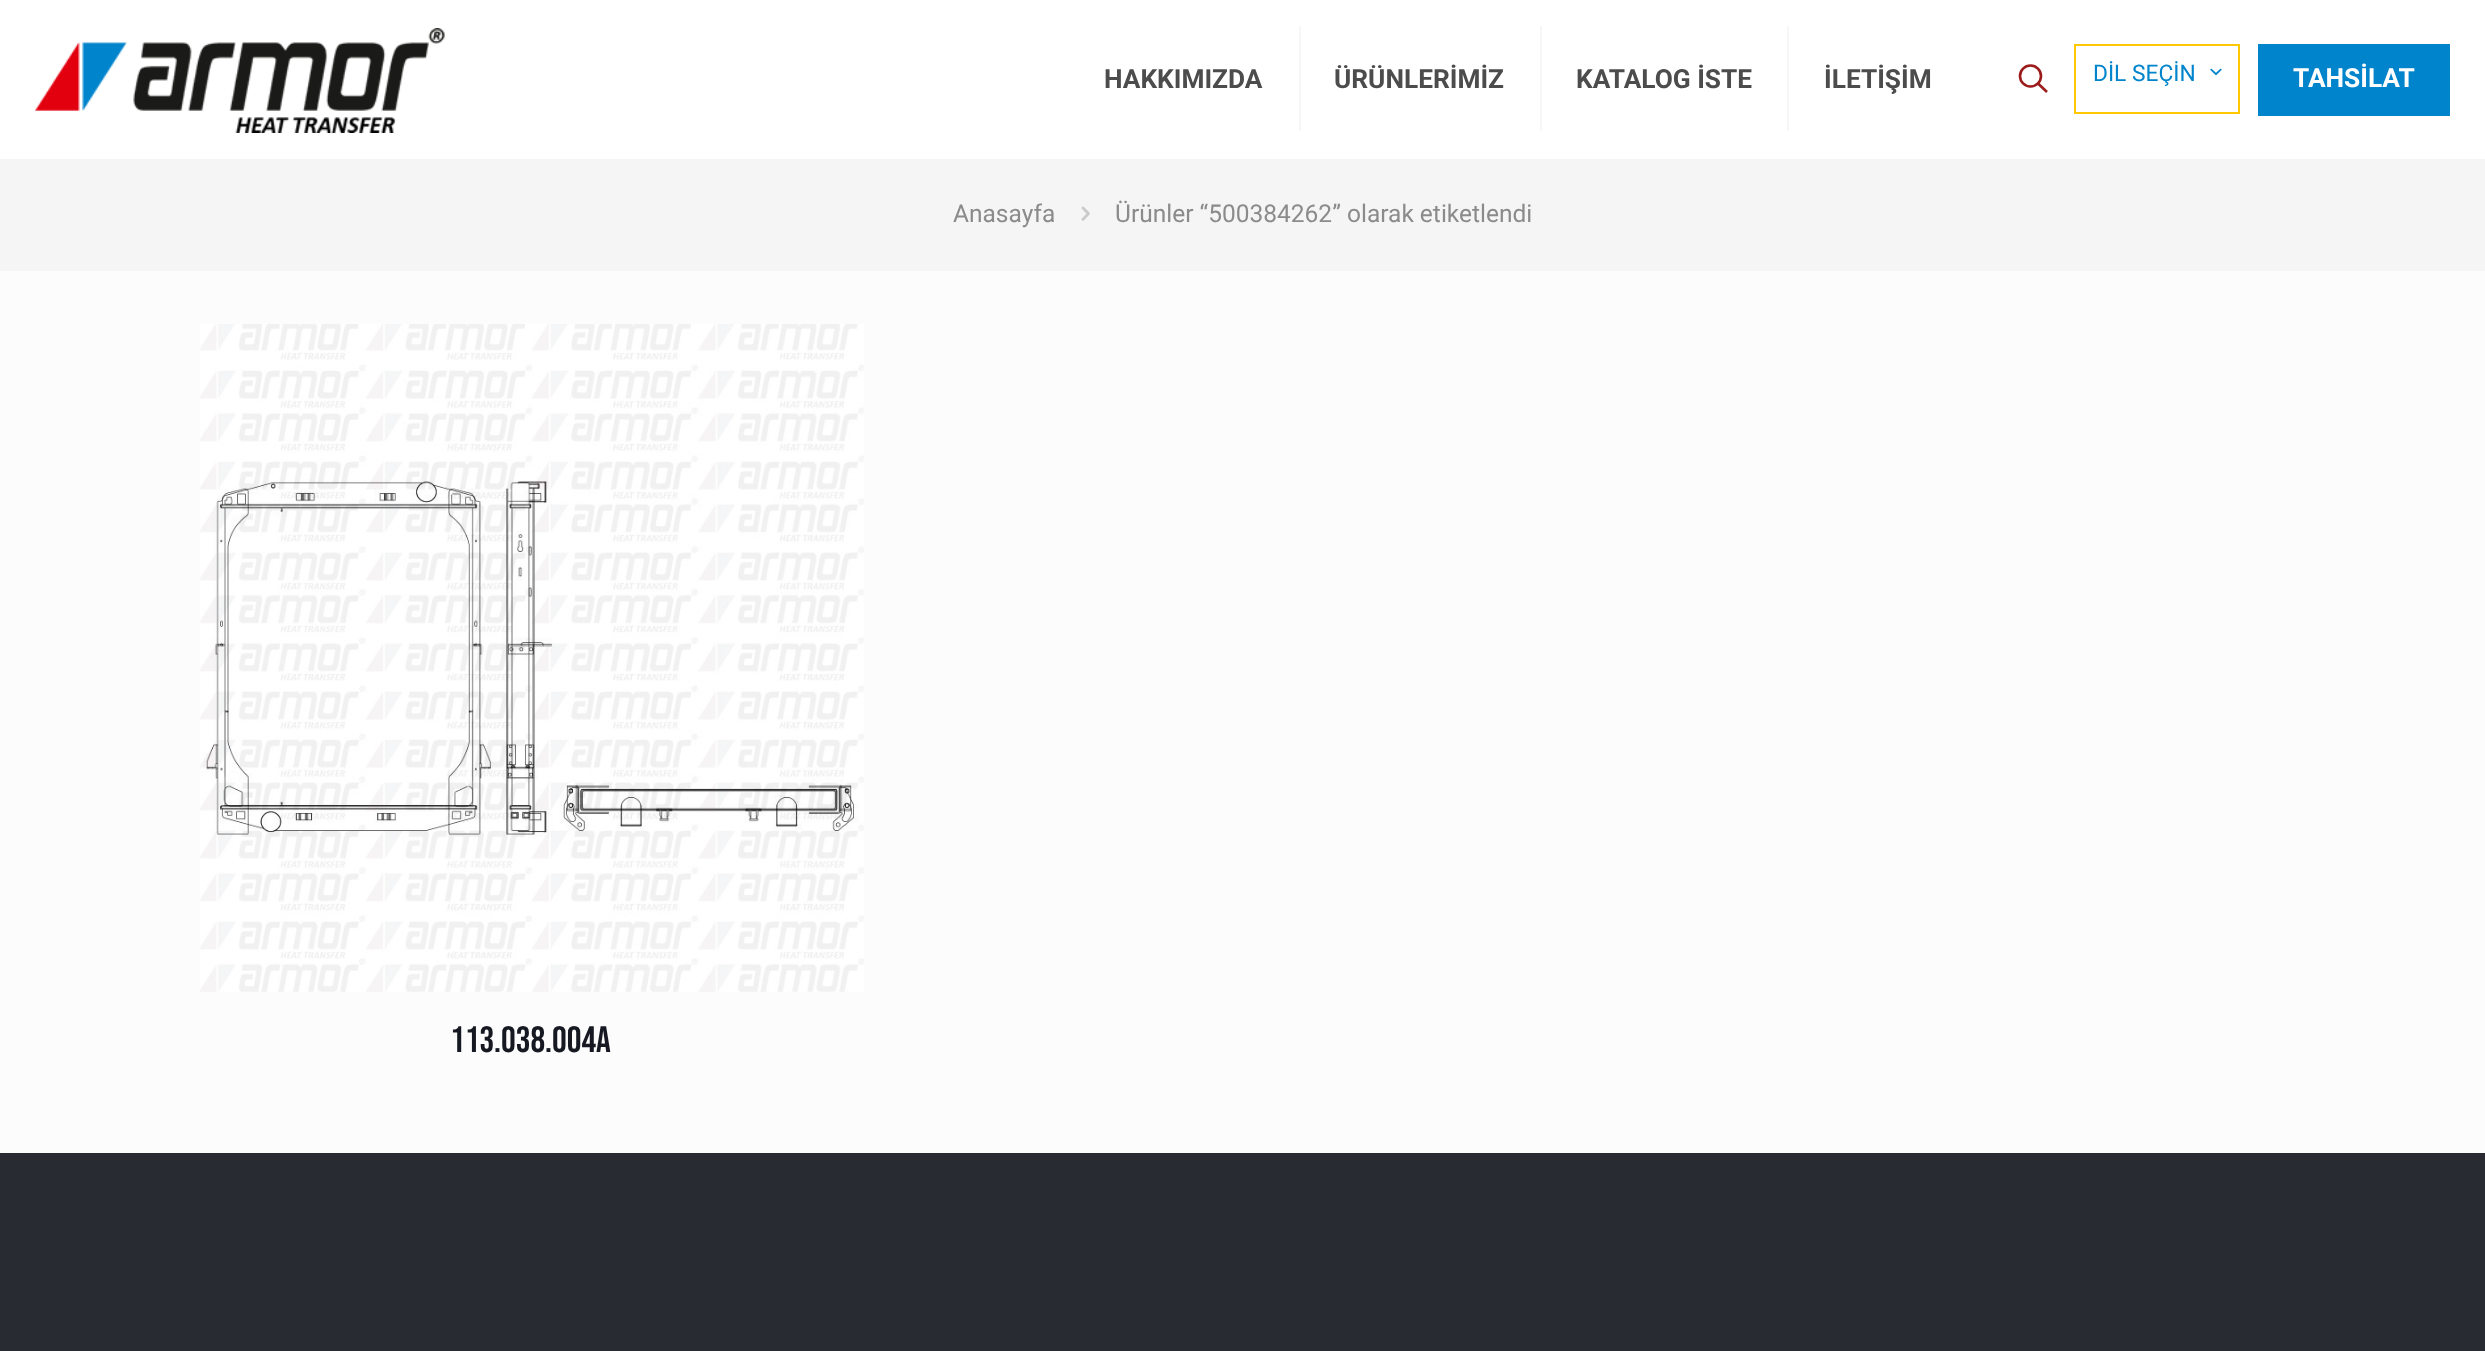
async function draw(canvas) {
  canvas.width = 2485
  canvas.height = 1351
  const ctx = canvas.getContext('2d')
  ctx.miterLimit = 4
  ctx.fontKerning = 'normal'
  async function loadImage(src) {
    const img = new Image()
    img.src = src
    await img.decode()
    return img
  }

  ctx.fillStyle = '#fcfcfc'
  ctx.fillRect(0, 0, 2485, 1351)
  ctx.fillStyle = '#fff'
  ctx.fillRect(0, 0, 2485, 159)
  ctx.drawImage(await loadImage('image0.png'), 35, 28, 410, 105)
  ctx.fillStyle = '#f7f7f7'
  ctx.fillRect(1299, 26, 2, 105)
  ctx.font = 'bold 26.25px Roboto'
  ctx.fillStyle = '#4c4c4c'
  ctx.fillText('HAKKIMIZDA', 1104, 88)
  ctx.fillStyle = '#f7f7f7'
  ctx.fillRect(1540, 26, 2, 105)
  ctx.fillStyle = '#4c4c4c'
  ctx.fillText('ÜRÜNLERİMİZ', 1334, 88)
  ctx.fillStyle = '#f7f7f7'
  ctx.fillRect(1787, 26, 2, 105)
  ctx.fillStyle = '#4c4c4c'
  ctx.fillText('KATALOG İSTE', 1576, 88)
  ctx.fillText('İLETİŞİM', 1824, 88)
  ctx.beginPath()
  ctx.arc(2030.5, 76, 10.5, 0, 2 * Math.PI)
  ctx.strokeStyle = '#9c1b1b'
  ctx.lineWidth = 2.6
  ctx.stroke()
  ctx.beginPath()
  ctx.moveTo(2038, 83.5)
  ctx.lineTo(2047, 92)
  ctx.stroke()
  ctx.strokeStyle = '#ffc800'
  ctx.lineWidth = 2
  ctx.strokeRect(2075, 45, 164, 68)
  ctx.font = '22.75px Roboto'
  ctx.fillStyle = '#0084cc'
  ctx.fillText('DİL SEÇİN', 2093, 81)
  ctx.drawImage(await loadImage('image1.png'), 2210, 68, 12, 8)
  ctx.fillRect(2258, 44, 192, 72)
  ctx.font = 'bold 26.25px Roboto'
  ctx.fillStyle = '#fff'
  ctx.fillText('TAHSİLAT', 2293, 87)
  ctx.fillStyle = '#f5f5f5'
  ctx.fillRect(0, 159, 2485, 112)
  ctx.font = '24.5px Roboto'
  ctx.fillStyle = '#8b8b8b'
  ctx.fillText('Anasayfa', 953, 222)
  ctx.drawImage(await loadImage('image2.png'), 1081, 206, 9, 15)
  ctx.fillText('Ürünler “500384262” olarak etiketlendi', 1115, 222)
  ctx.drawImage(await loadImage('image3.png'), 200, 324, 664, 668)
  ctx.font = '36.75px Bebas Neue'
  ctx.fillStyle = '#161922'
  ctx.fillText('113.038.004A', 450, 1052)
  ctx.fillStyle = '#292b33'
  ctx.fillRect(0, 1153, 2485, 198)
}

draw(document.querySelector('canvas'))
